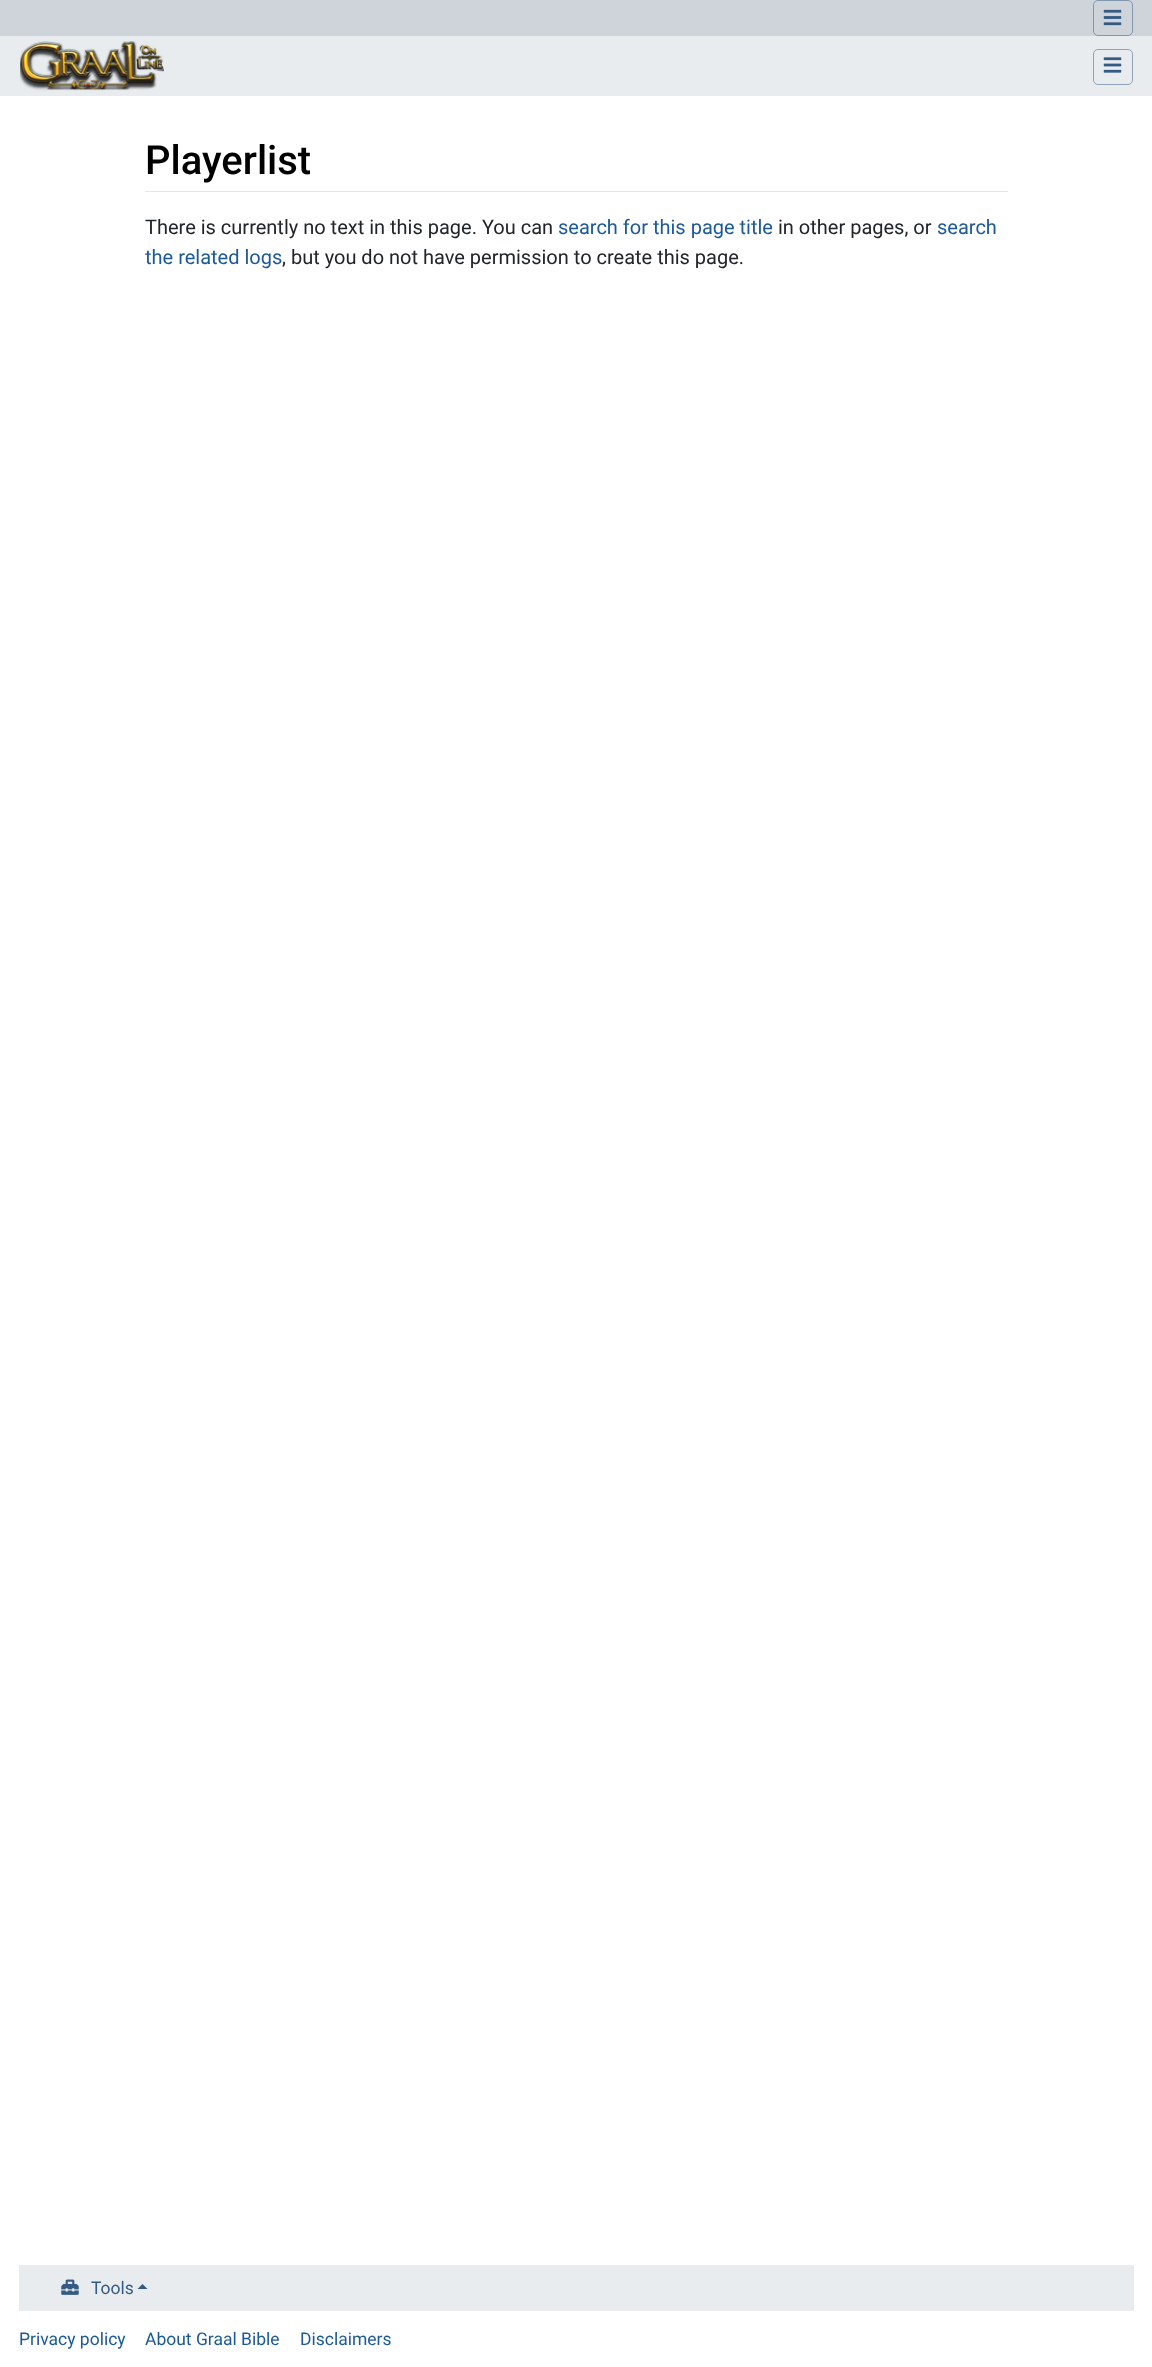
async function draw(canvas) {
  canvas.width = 1152
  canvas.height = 2367
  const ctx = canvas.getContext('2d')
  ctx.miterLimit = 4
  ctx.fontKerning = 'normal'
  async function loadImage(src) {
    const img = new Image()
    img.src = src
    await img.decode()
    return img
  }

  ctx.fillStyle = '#fff'
  ctx.fillRect(0, 0, 1152, 2367)
  ctx.fillStyle = '#ced4da'
  ctx.fillRect(0, 0, 1152, 36)
  ctx.beginPath()
  ctx.roundRect(1093.5, 0.5, 39, 35, 4.5)
  ctx.strokeStyle = '#8298af'
  ctx.stroke()
  ctx.drawImage(await loadImage('image0.png'), 1103, 9, 19, 17)
  ctx.fillStyle = '#e9ecef'
  ctx.fillRect(0, 36, 1152, 60)
  ctx.drawImage(await loadImage('image1.png'), 20, 41, 144, 50)
  ctx.beginPath()
  ctx.roundRect(1093.5, 49.5, 39, 35, 4.5)
  ctx.strokeStyle = '#8fa4ba'
  ctx.stroke()
  ctx.drawImage(await loadImage('image2.png'), 1103, 57, 19, 16)
  ctx.fillStyle = '#e6e6e6'
  ctx.fillRect(145, 191, 863, 1)
  ctx.font = '500 40px Roboto'
  ctx.fillStyle = '#000'
  ctx.fillText('Playerlist', 145, 174)
  ctx.font = '20px Roboto'
  ctx.fillStyle = '#212529'
  ctx.fillText('There is currently no text in this page. You can', 145, 234)
  ctx.fillStyle = '#1b599b'
  ctx.fillText('search for this page title', 558, 234)
  ctx.fillStyle = '#212529'
  ctx.fillText('in other pages, or', 778, 234)
  ctx.fillStyle = '#1b599b'
  ctx.fillText('search', 937, 234)
  ctx.fillText('the related logs', 145, 264)
  ctx.fillStyle = '#212529'
  ctx.fillText(', but you do not have permission to create this page.', 282, 264)
  ctx.fillStyle = '#e9ecef'
  ctx.fillRect(19, 2265, 1115, 46)
  ctx.drawImage(await loadImage('image3.png'), 61, 2279, 18, 16)
  ctx.font = '17.5px Roboto'
  ctx.fillStyle = '#355b84'
  ctx.fillText('Tools', 91, 2294)
  ctx.beginPath()
  ctx.moveTo(147.5, 2289)
  ctx.lineTo(137.5, 2289)
  ctx.lineTo(142.5, 2284)
  ctx.closePath()
  ctx.fill()
  ctx.fillStyle = '#1b599b'
  ctx.fillText('Privacy policy', 19, 2345)
  ctx.fillText('About Graal Bible', 145, 2345)
  ctx.fillText('Disclaimers', 300, 2345)
}

draw(document.querySelector('canvas'))
